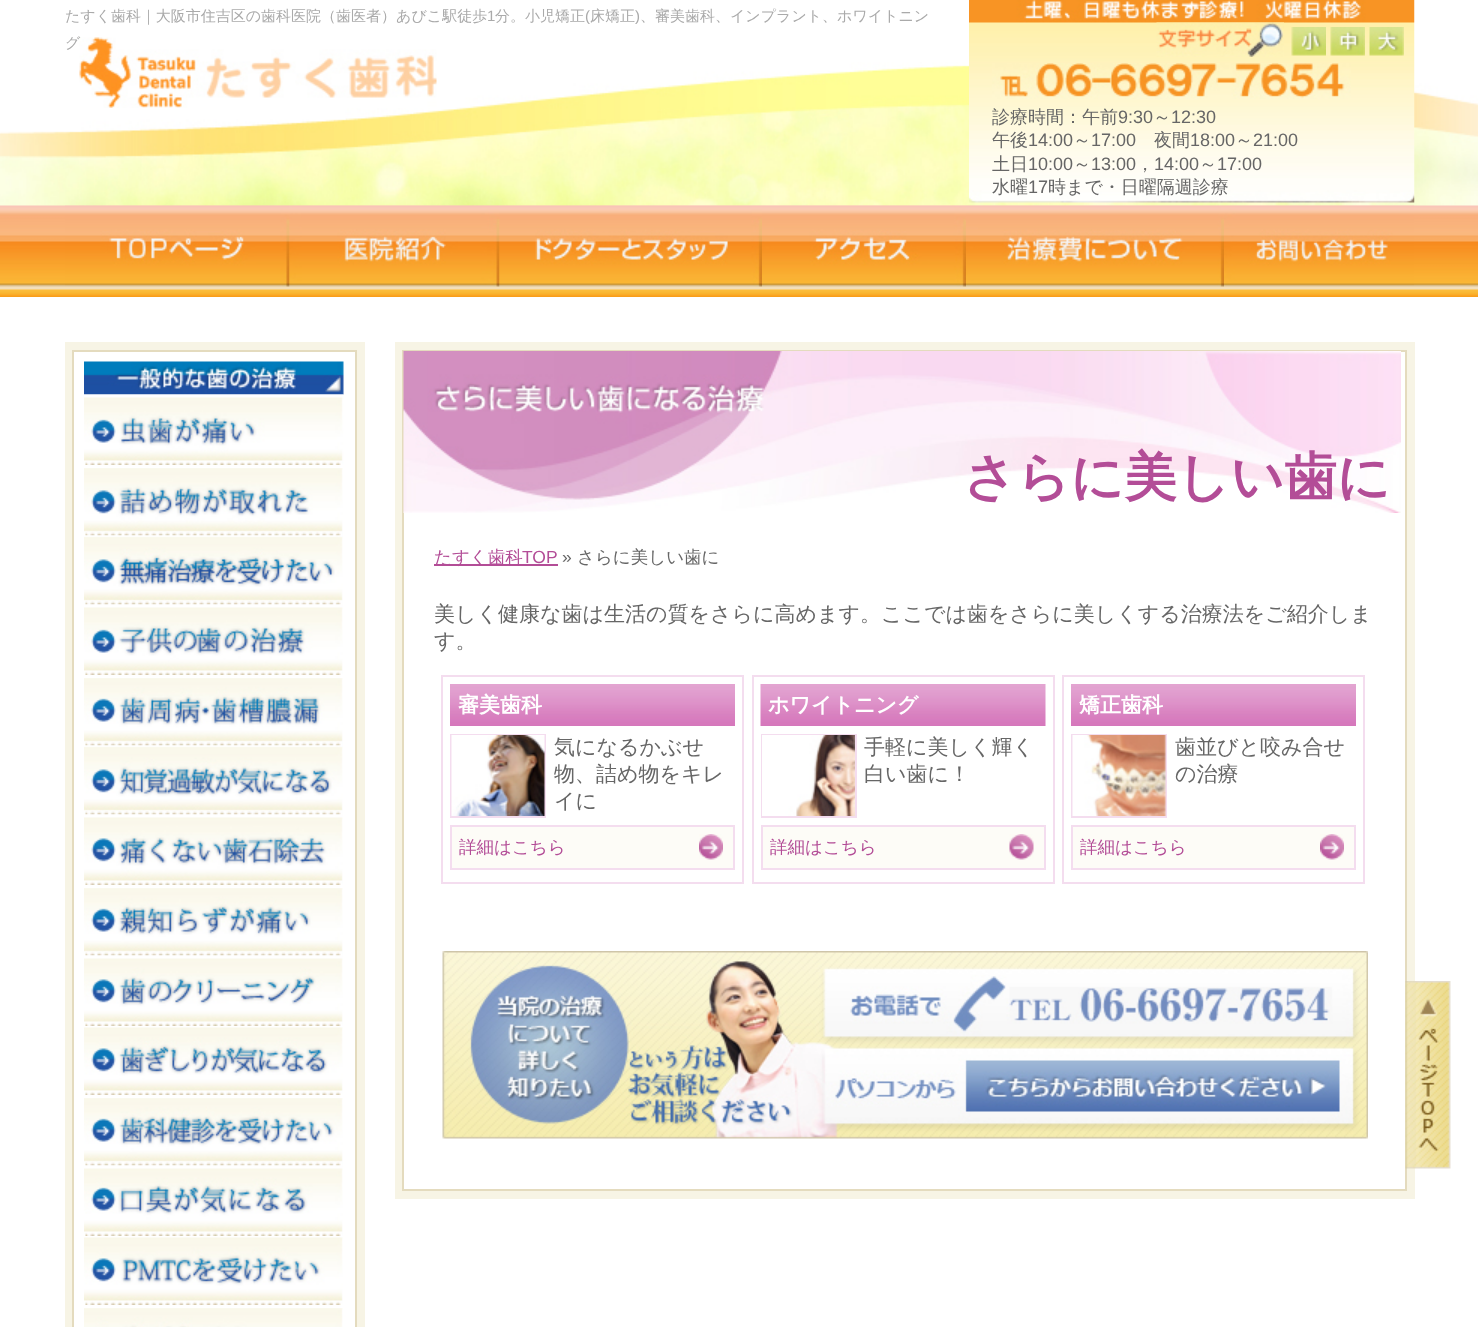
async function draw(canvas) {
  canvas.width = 1478
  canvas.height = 1327
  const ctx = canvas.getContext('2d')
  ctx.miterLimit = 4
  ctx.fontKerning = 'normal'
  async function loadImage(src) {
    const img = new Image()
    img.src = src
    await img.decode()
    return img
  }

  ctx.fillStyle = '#fff'
  ctx.fillRect(0, 0, 1478, 1327)
  ctx.drawImage(await loadImage('image0.png'), 0, 62, 1478, 144)
  ctx.font = '500 15px WenQuanYi Zen Hei'
  ctx.fillStyle = '#aaa'
  ctx.fillText('たすく歯科｜大阪市住吉区の歯科医院（歯医者）あびこ駅徒歩', 65, 21)
  ctx.font = '15px Liberation Sans'
  ctx.fillText('1', 487, 21)
  ctx.font = '500 15px WenQuanYi Zen Hei'
  ctx.fillText('分。小児矯正', 495, 21)
  ctx.font = '15px Liberation Sans'
  ctx.fillText('(', 585, 21)
  ctx.font = '500 15px WenQuanYi Zen Hei'
  ctx.fillText('床矯正', 590, 21)
  ctx.font = '15px Liberation Sans'
  ctx.fillText(')', 635, 21)
  ctx.font = '500 15px WenQuanYi Zen Hei'
  ctx.fillText('、審美歯科、インプラント、ホワイトニン', 640, 21)
  ctx.drawImage(await loadImage('image1.png'), 79, 37, 358, 71)
  ctx.fillText('グ', 65, 48)
  ctx.drawImage(await loadImage('image2.png'), 969, 0, 446, 203)
  ctx.drawImage(await loadImage('image3.png'), 1156, 22, 128, 35)
  ctx.drawImage(await loadImage('image4.png'), 1291, 27, 35, 29)
  ctx.drawImage(await loadImage('image5.png'), 1330, 27, 35, 29)
  ctx.drawImage(await loadImage('image6.png'), 1369, 27, 35, 29)
  ctx.drawImage(await loadImage('image7.png'), 992, 63, 359, 36)
  ctx.font = '500 18px WenQuanYi Zen Hei'
  ctx.fillStyle = '#666'
  ctx.fillText('診療時間：午前', 992, 123)
  ctx.font = '18px Liberation Sans'
  ctx.fillText('9:30', 1118, 123)
  ctx.font = '500 18px WenQuanYi Zen Hei'
  ctx.fillText('～', 1153, 123)
  ctx.font = '18px Liberation Sans'
  ctx.fillText('12:30', 1171, 123)
  ctx.font = '500 18px WenQuanYi Zen Hei'
  ctx.fillText('午後', 992, 146)
  ctx.font = '18px Liberation Sans'
  ctx.fillText('14:00', 1028, 146)
  ctx.font = '500 18px WenQuanYi Zen Hei'
  ctx.fillText('～', 1073, 146)
  ctx.font = '18px Liberation Sans'
  ctx.fillText('17:00', 1091, 146)
  ctx.font = '500 18px WenQuanYi Zen Hei'
  ctx.fillText('夜間', 1154, 146)
  ctx.font = '18px Liberation Sans'
  ctx.fillText('18:00', 1190, 146)
  ctx.font = '500 18px WenQuanYi Zen Hei'
  ctx.fillText('～', 1235, 146)
  ctx.font = '18px Liberation Sans'
  ctx.fillText('21:00', 1253, 146)
  ctx.font = '500 18px WenQuanYi Zen Hei'
  ctx.fillText('土日', 992, 170)
  ctx.font = '18px Liberation Sans'
  ctx.fillText('10:00', 1028, 170)
  ctx.font = '500 18px WenQuanYi Zen Hei'
  ctx.fillText('～', 1073, 170)
  ctx.font = '18px Liberation Sans'
  ctx.fillText('13:00', 1091, 170)
  ctx.fillText('14:00', 1154, 170)
  ctx.font = '500 18px WenQuanYi Zen Hei'
  ctx.fillText('～', 1199, 170)
  ctx.font = '18px Liberation Sans'
  ctx.fillText('17:00', 1217, 170)
  ctx.font = '500 18px WenQuanYi Zen Hei'
  ctx.fillText('，', 1136, 170)
  ctx.fillText('水曜', 992, 193)
  ctx.font = '18px Liberation Sans'
  ctx.fillText('17', 1028, 193)
  ctx.font = '500 18px WenQuanYi Zen Hei'
  ctx.fillText('時まで・日曜隔週診療', 1048, 193)
  ctx.drawImage(await loadImage('image8.png'), 0, 205, 1478, 92)
  ctx.drawImage(await loadImage('image9.png'), 65, 205, 225, 82)
  ctx.drawImage(await loadImage('image10.png'), 289, 205, 211, 82)
  ctx.drawImage(await loadImage('image11.png'), 499, 205, 263, 82)
  ctx.drawImage(await loadImage('image12.png'), 762, 205, 204, 82)
  ctx.drawImage(await loadImage('image13.png'), 966, 205, 258, 82)
  ctx.drawImage(await loadImage('image14.png'), 1224, 205, 190, 81)
  ctx.fillStyle = '#f7f4e5'
  ctx.fillRect(65, 342, 300, 985)
  ctx.fillStyle = '#fff'
  ctx.beginPath()
  ctx.rect(73, 351, 283, 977)
  ctx.fill()
  ctx.strokeStyle = '#e4dbbe'
  ctx.lineWidth = 2
  ctx.stroke()
  ctx.drawImage(await loadImage('image15.png'), 84, 361, 260, 34)
  ctx.drawImage(await loadImage('image16.png'), 84, 394, 260, 71)
  ctx.drawImage(await loadImage('image17.png'), 84, 468, 259, 68)
  ctx.drawImage(await loadImage('image18.png'), 84, 535, 259, 70)
  ctx.drawImage(await loadImage('image19.png'), 84, 604, 259, 71)
  ctx.drawImage(await loadImage('image20.png'), 84, 678, 259, 68)
  ctx.drawImage(await loadImage('image21.png'), 84, 745, 259, 70)
  ctx.drawImage(await loadImage('image22.png'), 84, 814, 259, 71)
  ctx.drawImage(await loadImage('image23.png'), 84, 888, 259, 68)
  ctx.drawImage(await loadImage('image24.png'), 84, 955, 259, 71)
  ctx.drawImage(await loadImage('image25.png'), 84, 1027, 259, 68)
  ctx.drawImage(await loadImage('image26.png'), 84, 1098, 259, 68)
  ctx.drawImage(await loadImage('image27.png'), 84, 1165, 259, 71)
  ctx.drawImage(await loadImage('image28.png'), 84, 1237, 259, 68)
  ctx.drawImage(await loadImage('image29.png'), 84, 1308, 259, 19)
  ctx.fillStyle = '#f7f4e5'
  ctx.fillRect(395, 342, 1020, 857)
  ctx.fillStyle = '#fff'
  ctx.beginPath()
  ctx.rect(403, 351, 1003, 839)
  ctx.fill()
  ctx.stroke()
  ctx.drawImage(await loadImage('image30.png'), 403, 351, 998, 162)
  ctx.font = 'bold 52.5px WenQuanYi Zen Hei'
  ctx.fillStyle = '#b34d97'
  ctx.fillText('さらに美しい歯に', 963, 495)
  ctx.fillRect(434, 564, 124, 2)
  ctx.font = '500 17.5px WenQuanYi Zen Hei'
  ctx.fillText('たすく歯科', 434, 563)
  ctx.font = '17.5px Liberation Sans'
  ctx.fillText('TOP', 522, 563)
  ctx.fillStyle = '#666'
  ctx.fillText('»', 562, 563)
  ctx.font = '500 17.5px WenQuanYi Zen Hei'
  ctx.fillText('さらに美しい歯に', 577, 563)
  ctx.font = '500 21px WenQuanYi Zen Hei'
  ctx.fillText('美しく健康な歯は生活の質をさらに高めます。ここでは歯をさらに美しくする治療法をご紹介しま', 434, 621)
  ctx.fillText('す。', 434, 648)
  ctx.strokeStyle = '#f4ddef'
  ctx.strokeRect(442, 676, 301, 207)
  ctx.drawImage(await loadImage('image31.png'), 450, 684, 285, 42)
  ctx.font = 'bold 21px WenQuanYi Zen Hei'
  ctx.fillStyle = '#fff'
  ctx.fillText('審美歯科', 458, 712)
  ctx.strokeRect(451, 735, 94, 82)
  ctx.drawImage(await loadImage('image32.png'), 451, 735, 94, 81)
  ctx.font = '500 21px WenQuanYi Zen Hei'
  ctx.fillStyle = '#666'
  ctx.fillText('気になるかぶせ', 554, 754)
  ctx.fillText('物、詰め物をキレ', 554, 781)
  ctx.fillText('イに', 554, 808)
  ctx.fillStyle = '#fdfcf7'
  ctx.fillRect(452, 827, 281, 41)
  ctx.drawImage(await loadImage('image33.png'), 699, 834, 24, 26)
  ctx.strokeRect(451, 826, 283, 43)
  ctx.font = '500 17.5px WenQuanYi Zen Hei'
  ctx.fillStyle = '#b34d97'
  ctx.fillText('詳細はこちら', 459, 853)
  ctx.strokeRect(753, 676, 301, 207)
  ctx.drawImage(await loadImage('image34.png'), 760, 684, 286, 42)
  ctx.font = 'bold 21px WenQuanYi Zen Hei'
  ctx.fillStyle = '#fff'
  ctx.fillText('ホワイトニング', 768, 712)
  ctx.strokeRect(762, 735, 94, 82)
  ctx.drawImage(await loadImage('image35.png'), 762, 735, 93, 81)
  ctx.font = '500 21px WenQuanYi Zen Hei'
  ctx.fillStyle = '#666'
  ctx.fillText('手軽に美しく輝く', 864, 754)
  ctx.fillText('白い歯に！', 864, 781)
  ctx.fillStyle = '#fdfcf7'
  ctx.fillRect(763, 827, 281, 41)
  ctx.drawImage(await loadImage('image36.png'), 1009, 834, 25, 26)
  ctx.strokeRect(762, 826, 283, 43)
  ctx.font = '500 17.5px WenQuanYi Zen Hei'
  ctx.fillStyle = '#b34d97'
  ctx.fillText('詳細はこちら', 770, 853)
  ctx.strokeRect(1063, 676, 301, 207)
  ctx.drawImage(await loadImage('image37.png'), 1071, 684, 285, 42)
  ctx.font = 'bold 21px WenQuanYi Zen Hei'
  ctx.fillStyle = '#fff'
  ctx.fillText('矯正歯科', 1079, 712)
  ctx.strokeRect(1072, 735, 94, 82)
  ctx.drawImage(await loadImage('image38.png'), 1072, 735, 94, 81)
  ctx.font = '500 21px WenQuanYi Zen Hei'
  ctx.fillStyle = '#666'
  ctx.fillText('歯並びと咬み合せ', 1175, 754)
  ctx.fillText('の治療', 1175, 781)
  ctx.fillStyle = '#fdfcf7'
  ctx.fillRect(1073, 827, 281, 41)
  ctx.drawImage(await loadImage('image39.png'), 1320, 834, 24, 26)
  ctx.strokeRect(1072, 826, 283, 43)
  ctx.font = '500 17.5px WenQuanYi Zen Hei'
  ctx.fillStyle = '#b34d97'
  ctx.fillText('詳細はこちら', 1080, 853)
  ctx.drawImage(await loadImage('image40.png'), 442, 951, 926, 188)
  ctx.drawImage(await loadImage('image41.png'), 1405, 981, 46, 188)
}

draw(document.querySelector('canvas'))
